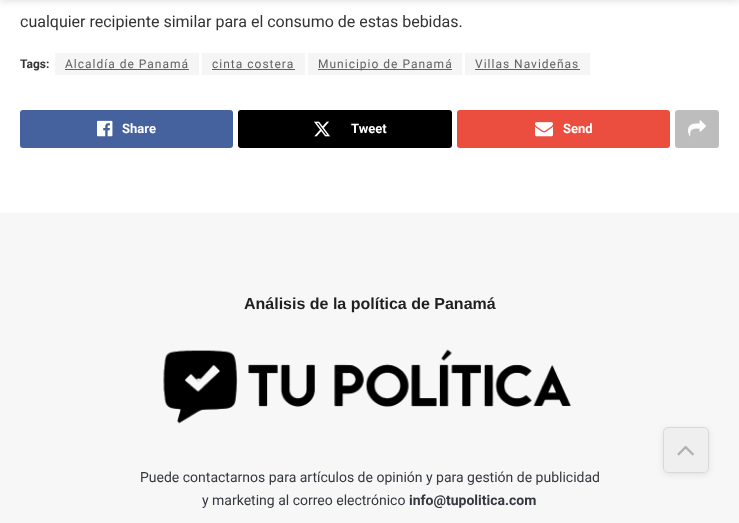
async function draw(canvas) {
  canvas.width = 739
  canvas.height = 523
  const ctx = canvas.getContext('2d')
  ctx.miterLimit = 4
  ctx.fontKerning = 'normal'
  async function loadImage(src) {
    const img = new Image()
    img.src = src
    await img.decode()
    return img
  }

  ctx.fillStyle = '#fff'
  ctx.fillRect(0, 0, 739, 523)
  ctx.fillStyle = '#0000001a'
  ctx.filter = 'blur(3px)'
  ctx.beginPath()
  ctx.rect(0, -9, 739, 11)
  ctx.fill()
  ctx.filter = 'none'
  ctx.font = '16px Roboto'
  ctx.fillStyle = '#333'
  ctx.fillText('cualquier recipiente similar para el consumo de estas bebidas.', 20, 27)
  ctx.font = 'bold 12px Roboto'
  ctx.fillText('Tags:', 20, 68)
  ctx.fillStyle = '#f5f5f5'
  ctx.fillRect(55, 53, 144, 22)
  ctx.letterSpacing = '1px'
  ctx.font = '12px Roboto'
  ctx.fillStyle = '#616161'
  ctx.fillText('Alcaldía de Panamá', 65, 68)
  ctx.fillRect(65, 69, 124, 1)
  ctx.fillStyle = '#f5f5f5'
  ctx.fillRect(202, 53, 103, 22)
  ctx.fillStyle = '#616161'
  ctx.fillText('cinta costera', 212, 68)
  ctx.fillRect(212, 69, 83, 1)
  ctx.fillStyle = '#f5f5f5'
  ctx.fillRect(308, 53, 154, 22)
  ctx.fillStyle = '#616161'
  ctx.fillRect(318, 69, 134, 1)
  ctx.fillText('Municipio de Panamá', 318, 68)
  ctx.fillStyle = '#f5f5f5'
  ctx.fillRect(465, 53, 125, 22)
  ctx.fillStyle = '#616161'
  ctx.fillText('Villas Navideñas', 475, 68)
  ctx.fillRect(475, 69, 105, 1)
  ctx.fillStyle = '#45629f'
  ctx.beginPath()
  ctx.roundRect(20, 110, 213, 38, 3)
  ctx.fill()
  ctx.drawImage(await loadImage('image0.png'), 97, 120, 16, 17)
  ctx.letterSpacing = '0px'
  ctx.font = 'bold 13px Roboto'
  ctx.fillStyle = '#fff'
  ctx.fillText('Share', 122, 133)
  ctx.fillStyle = '#000'
  ctx.beginPath()
  ctx.roundRect(238, 110, 214, 38, 3)
  ctx.fill()
  ctx.drawImage(await loadImage('image1.png'), 314, 121, 16, 16)
  ctx.fillStyle = '#fff'
  ctx.fillText('Tweet', 351, 133)
  ctx.fillStyle = '#eb4d3f'
  ctx.beginPath()
  ctx.roundRect(457, 110, 213, 38, 3)
  ctx.fill()
  ctx.drawImage(await loadImage('image2.png'), 535, 122, 18, 15)
  ctx.fillStyle = '#fff'
  ctx.fillText('Send', 563, 133)
  ctx.fillStyle = '#bdbdbd'
  ctx.beginPath()
  ctx.roundRect(675, 110, 44, 38, 3)
  ctx.fill()
  ctx.drawImage(await loadImage('image3.png'), 688, 120, 18, 17)
  ctx.fillStyle = '#f7f7f7'
  ctx.fillRect(0, 213, 739, 310)
  ctx.font = 'bold 16px Liberation Sans'
  ctx.fillStyle = '#211e1e'
  ctx.fillText('Análisis de la política de Panamá', 244, 309)
  ctx.drawImage(await loadImage('image4.png'), 163, 349, 408, 75)
  ctx.font = '14px Roboto'
  ctx.fillStyle = '#343840'
  ctx.fillText('Puede contactarnos para artículos de opinión y para gestión de publicidad', 140, 482)
  ctx.fillText('y marketing al correo electrónico', 202, 505)
  ctx.font = 'bold 14px Roboto'
  ctx.fillText('info@tupolitica.com', 409, 505)
  ctx.save()
  ctx.beginPath()
  ctx.moveTo(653, 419)
  ctx.lineTo(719, 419)
  ctx.lineTo(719, 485)
  ctx.lineTo(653, 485)
  ctx.closePath()
  ctx.moveTo(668, 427)
  ctx.lineTo(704, 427)
  ctx.bezierCurveTo(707, 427, 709, 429, 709, 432)
  ctx.lineTo(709, 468)
  ctx.bezierCurveTo(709, 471, 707, 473, 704, 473)
  ctx.lineTo(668, 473)
  ctx.bezierCurveTo(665, 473, 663, 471, 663, 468)
  ctx.lineTo(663, 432)
  ctx.bezierCurveTo(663, 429, 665, 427, 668, 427)
  ctx.closePath()
  ctx.clip('evenodd')
  ctx.fillStyle = '#3131311a'
  ctx.filter = 'blur(3px)'
  ctx.beginPath()
  ctx.roundRect(663, 429, 46, 46, 5)
  ctx.fill()
  ctx.filter = 'none'
  ctx.restore()
  ctx.fillStyle = '#c2c2c226'
  ctx.beginPath()
  ctx.roundRect(663, 427, 46, 46, 5)
  ctx.fill()
  ctx.beginPath()
  ctx.roundRect(663.5, 427.5, 45, 45, 4.5)
  ctx.strokeStyle = '#3131311c'
  ctx.stroke()
  ctx.drawImage(await loadImage('image5.png'), 677, 445, 17, 11)
}

draw(document.querySelector('canvas'))
